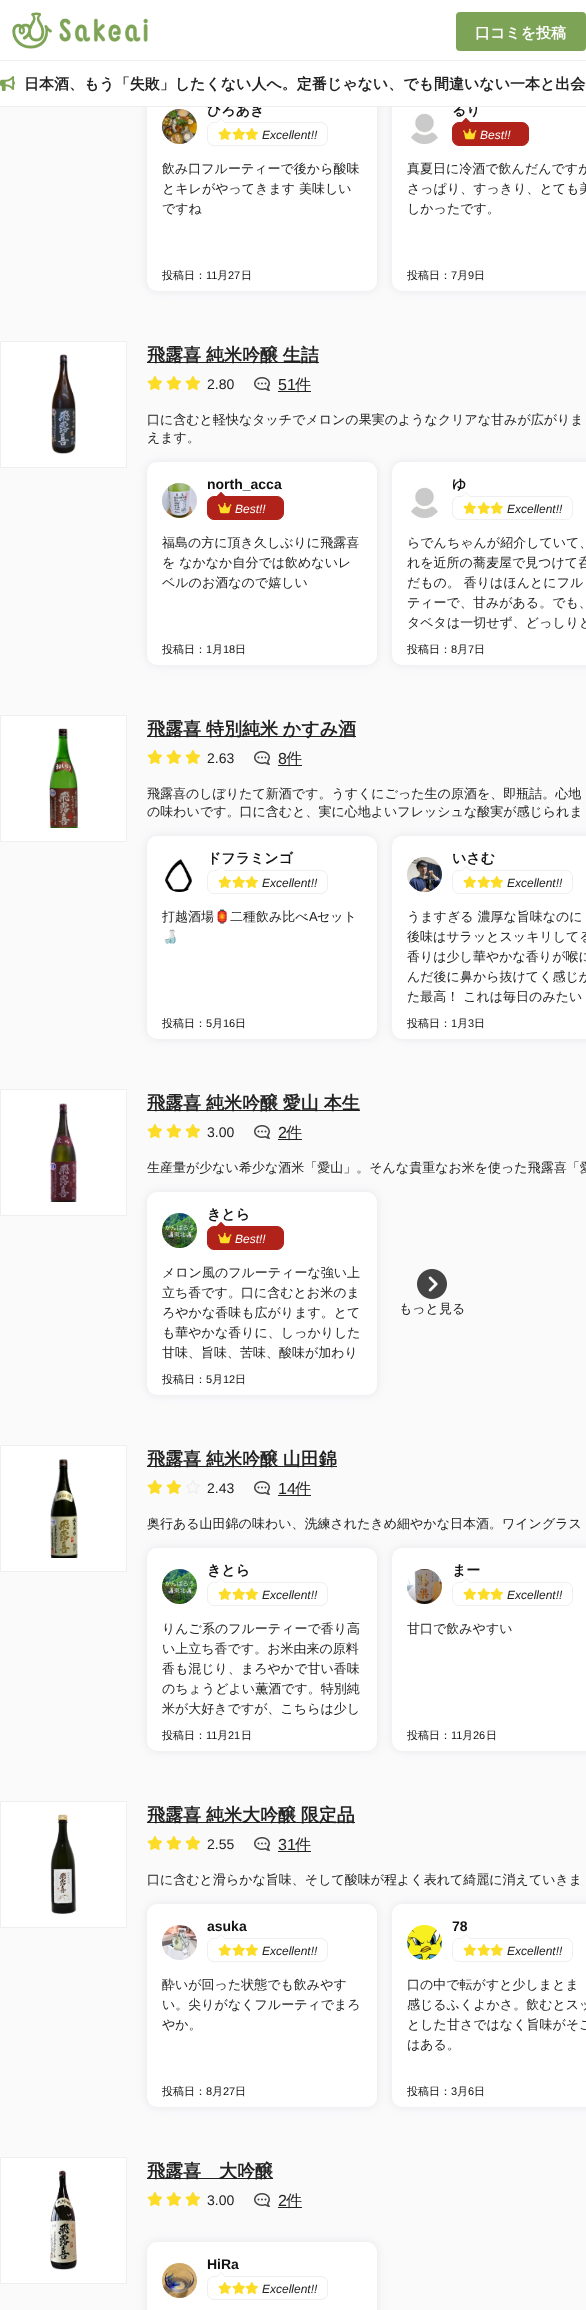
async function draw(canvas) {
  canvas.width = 586
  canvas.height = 2310
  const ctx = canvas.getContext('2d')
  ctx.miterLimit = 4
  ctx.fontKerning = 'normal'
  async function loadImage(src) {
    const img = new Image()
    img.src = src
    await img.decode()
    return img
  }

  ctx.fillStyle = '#fafafb'
  ctx.fillRect(0, 0, 586, 2310)
  ctx.fillStyle = '#fff'
  ctx.fillRect(0, 0, 586, 60)
  ctx.fillStyle = '#eee'
  ctx.fillRect(0, 60, 586, 1)
  ctx.drawImage(await loadImage('image0.png'), 12, 12, 137, 37)
  ctx.fillStyle = '#7da356'
  ctx.beginPath()
  ctx.roundRect(456, 12, 130, 39, 4)
  ctx.fill()
  ctx.font = 'bold 15px WenQuanYi Zen Hei'
  ctx.fillStyle = '#fff'
  ctx.fillText('口コミを投稿', 475, 38)
  ctx.fillStyle = '#959da533'
  ctx.filter = 'blur(5px)'
  ctx.beginPath()
  ctx.roundRect(147, 88, 230, 203, 10)
  ctx.fill()
  ctx.filter = 'none'
  ctx.fillStyle = '#fff'
  ctx.beginPath()
  ctx.roundRect(147, 88, 230, 203, 10)
  ctx.fill()
  ctx.font = 'bold 14px WenQuanYi Zen Hei'
  ctx.fillStyle = '#111'
  ctx.fillText('ひろあき', 207, 115)
  ctx.fillStyle = '#959da533'
  ctx.filter = 'blur(5px)'
  ctx.beginPath()
  ctx.roundRect(392, 88, 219, 203, 10)
  ctx.fill()
  ctx.filter = 'none'
  ctx.fillStyle = '#fff'
  ctx.beginPath()
  ctx.roundRect(392, 88, 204, 203, 10)
  ctx.fill()
  ctx.fillStyle = '#111'
  ctx.fillText('るり', 452, 115)
  ctx.fillStyle = '#fff'
  ctx.fillRect(0, 61, 586, 45)
  ctx.fillStyle = '#eee'
  ctx.fillRect(0, 106, 586, 1)
  ctx.drawImage(await loadImage('image1.png'), 0, 76, 15, 15)
  ctx.font = 'bold 15px WenQuanYi Zen Hei'
  ctx.fillStyle = '#222'
  ctx.fillText('日本酒、もう「失敗」したくない人へ。定番じゃない、でも間違いない一本と出会', 24, 89)
  ctx.drawImage(await loadImage('image2.png'), 162, 109, 35, 35)
  ctx.beginPath()
  ctx.roundRect(207.5, 122.5, 120, 23, 6.5)
  ctx.strokeStyle = '#efefef'
  ctx.stroke()
  ctx.fillStyle = '#fff'
  ctx.beginPath()
  ctx.moveTo(221, 118)
  ctx.lineTo(225, 122)
  ctx.lineTo(221, 126)
  ctx.lineTo(217, 122)
  ctx.closePath()
  ctx.fill()
  ctx.fillStyle = '#efefef'
  ctx.beginPath()
  ctx.moveTo(221, 118)
  ctx.lineTo(225, 122)
  ctx.lineTo(224.5, 122.5)
  ctx.lineTo(220.5, 118.5)
  ctx.closePath()
  ctx.fill()
  ctx.beginPath()
  ctx.moveTo(221, 118)
  ctx.lineTo(221.5, 118.5)
  ctx.lineTo(217.5, 122.5)
  ctx.lineTo(217, 122)
  ctx.closePath()
  ctx.fill()
  ctx.drawImage(await loadImage('image3.png'), 218, 128, 13, 12)
  ctx.drawImage(await loadImage('image3.png'), 232, 128, 13, 12)
  ctx.drawImage(await loadImage('image3.png'), 245, 128, 13, 12)
  ctx.font = 'italic 12px Liberation Sans'
  ctx.fillStyle = '#222'
  ctx.fillText('Excellent!!', 262, 139)
  ctx.font = '500 13px WenQuanYi Zen Hei'
  ctx.fillText('飲み口フルーティーで後から酸味', 162, 173)
  ctx.fillText('とキレがやってきます 美味しい', 162, 193)
  ctx.fillText('ですね', 162, 213)
  ctx.font = '500 11px WenQuanYi Zen Hei'
  ctx.fillStyle = '#111'
  ctx.fillText('投稿日：', 162, 279)
  ctx.font = '11px Liberation Sans'
  ctx.fillText('11', 206, 279)
  ctx.font = '500 11px WenQuanYi Zen Hei'
  ctx.fillText('月', 217, 279)
  ctx.font = '11px Liberation Sans'
  ctx.fillText('27', 228, 279)
  ctx.font = '500 11px WenQuanYi Zen Hei'
  ctx.fillText('日', 241, 279)
  ctx.drawImage(await loadImage('image4.png'), 411, 113, 27, 31)
  ctx.fillStyle = '#b1221a'
  ctx.beginPath()
  ctx.roundRect(452.5, 122.5, 76, 23, 6.5)
  ctx.fill()
  ctx.strokeStyle = '#b1221a'
  ctx.stroke()
  ctx.beginPath()
  ctx.moveTo(466, 118)
  ctx.lineTo(470, 122)
  ctx.lineTo(466, 126)
  ctx.lineTo(462, 122)
  ctx.closePath()
  ctx.fill()
  ctx.beginPath()
  ctx.moveTo(466, 118)
  ctx.lineTo(470, 122)
  ctx.lineTo(469.5, 122.5)
  ctx.lineTo(465.5, 118.5)
  ctx.closePath()
  ctx.fill()
  ctx.beginPath()
  ctx.moveTo(466, 118)
  ctx.lineTo(466.5, 118.5)
  ctx.lineTo(462.5, 122.5)
  ctx.lineTo(462, 122)
  ctx.closePath()
  ctx.fill()
  ctx.drawImage(await loadImage('image5.png'), 463, 128, 14, 12)
  ctx.font = 'italic 12px Liberation Sans'
  ctx.fillStyle = '#fff'
  ctx.fillText('Best!!', 480, 139)
  ctx.font = '500 13px WenQuanYi Zen Hei'
  ctx.fillStyle = '#222'
  ctx.fillText('真夏日に冷酒で飲んだんですが', 407, 173)
  ctx.fillText('さっぱり、すっきり、とても美', 407, 193)
  ctx.fillText('しかったです。', 407, 213)
  ctx.font = '500 11px WenQuanYi Zen Hei'
  ctx.fillStyle = '#111'
  ctx.fillText('投稿日：', 407, 279)
  ctx.font = '11px Liberation Sans'
  ctx.fillText('7', 451, 279)
  ctx.font = '500 11px WenQuanYi Zen Hei'
  ctx.fillText('月', 457, 279)
  ctx.font = '11px Liberation Sans'
  ctx.fillText('9', 468, 279)
  ctx.font = '500 11px WenQuanYi Zen Hei'
  ctx.fillText('日', 474, 279)
  ctx.fillStyle = '#fff'
  ctx.beginPath()
  ctx.rect(0.5, 341.5, 126, 126)
  ctx.fill()
  ctx.strokeStyle = '#efefef'
  ctx.stroke()
  ctx.drawImage(await loadImage('image6.png'), 51, 354, 25, 100)
  ctx.fillStyle = '#222'
  ctx.fillRect(147, 362, 172, 1)
  ctx.wordSpacing = '-0.5px'
  ctx.font = 'bold 18px WenQuanYi Zen Hei'
  ctx.fillText('飛露喜 純米吟醸 生詰', 147, 361)
  ctx.drawImage(await loadImage('image7.png'), 147, 376, 16, 14)
  ctx.drawImage(await loadImage('image7.png'), 166, 376, 16, 14)
  ctx.drawImage(await loadImage('image7.png'), 185, 376, 16, 14)
  ctx.wordSpacing = '0px'
  ctx.font = '14px Liberation Sans'
  ctx.fillText('2.80', 207, 389)
  ctx.drawImage(await loadImage('image8.png'), 254, 377, 16, 14)
  ctx.font = '16px Liberation Sans'
  ctx.fillText('51', 278, 390)
  ctx.fillRect(278, 391, 33, 1)
  ctx.font = '500 16px WenQuanYi Zen Hei'
  ctx.fillText('件', 295, 390)
  ctx.font = '500 13px WenQuanYi Zen Hei'
  ctx.fillText('口に含むと軽快なタッチでメロンの果実のようなクリアな甘みが広がりま', 147, 424)
  ctx.fillText('えます。', 147, 442)
  ctx.fillStyle = '#959da533'
  ctx.filter = 'blur(5px)'
  ctx.beginPath()
  ctx.roundRect(147, 462, 230, 203, 10)
  ctx.fill()
  ctx.filter = 'none'
  ctx.fillStyle = '#fff'
  ctx.beginPath()
  ctx.roundRect(147, 462, 230, 203, 10)
  ctx.fill()
  ctx.drawImage(await loadImage('image9.png'), 162, 483, 35, 35)
  ctx.font = 'bold 14px Liberation Sans'
  ctx.fillStyle = '#111'
  ctx.fillText('north_acca', 207, 489)
  ctx.fillStyle = '#b1221a'
  ctx.beginPath()
  ctx.roundRect(207.5, 496.5, 76, 23, 6.5)
  ctx.fill()
  ctx.strokeStyle = '#b1221a'
  ctx.stroke()
  ctx.beginPath()
  ctx.moveTo(221, 492)
  ctx.lineTo(225, 496)
  ctx.lineTo(221, 500)
  ctx.lineTo(217, 496)
  ctx.closePath()
  ctx.fill()
  ctx.beginPath()
  ctx.moveTo(221, 492)
  ctx.lineTo(225, 496)
  ctx.lineTo(224.5, 496.5)
  ctx.lineTo(220.5, 492.5)
  ctx.closePath()
  ctx.fill()
  ctx.beginPath()
  ctx.moveTo(221, 492)
  ctx.lineTo(221.5, 492.5)
  ctx.lineTo(217.5, 496.5)
  ctx.lineTo(217, 496)
  ctx.closePath()
  ctx.fill()
  ctx.drawImage(await loadImage('image5.png'), 218, 502, 14, 12)
  ctx.font = 'italic 12px Liberation Sans'
  ctx.fillStyle = '#fff'
  ctx.fillText('Best!!', 235, 513)
  ctx.font = '500 13px WenQuanYi Zen Hei'
  ctx.fillStyle = '#222'
  ctx.fillText('福島の方に頂き久しぶりに飛露喜', 162, 547)
  ctx.fillText('を なかなか自分では飲めないレ', 162, 567)
  ctx.fillText('ベルのお酒なので嬉しい', 162, 587)
  ctx.font = '500 11px WenQuanYi Zen Hei'
  ctx.fillStyle = '#111'
  ctx.fillText('投稿日：', 162, 653)
  ctx.font = '11px Liberation Sans'
  ctx.fillText('1', 206, 653)
  ctx.font = '500 11px WenQuanYi Zen Hei'
  ctx.fillText('月', 212, 653)
  ctx.font = '11px Liberation Sans'
  ctx.fillText('18', 223, 653)
  ctx.font = '500 11px WenQuanYi Zen Hei'
  ctx.fillText('日', 235, 653)
  ctx.fillStyle = '#959da533'
  ctx.filter = 'blur(5px)'
  ctx.beginPath()
  ctx.roundRect(392, 462, 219, 203, 10)
  ctx.fill()
  ctx.filter = 'none'
  ctx.fillStyle = '#fff'
  ctx.beginPath()
  ctx.roundRect(392, 462, 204, 203, 10)
  ctx.fill()
  ctx.drawImage(await loadImage('image4.png'), 411, 487, 27, 31)
  ctx.font = 'bold 14px WenQuanYi Zen Hei'
  ctx.fillStyle = '#111'
  ctx.fillText('ゆ', 452, 489)
  ctx.beginPath()
  ctx.roundRect(452.5, 496.5, 120, 23, 6.5)
  ctx.strokeStyle = '#efefef'
  ctx.stroke()
  ctx.fillStyle = '#fff'
  ctx.beginPath()
  ctx.moveTo(466, 492)
  ctx.lineTo(470, 496)
  ctx.lineTo(466, 500)
  ctx.lineTo(462, 496)
  ctx.closePath()
  ctx.fill()
  ctx.fillStyle = '#efefef'
  ctx.beginPath()
  ctx.moveTo(466, 492)
  ctx.lineTo(470, 496)
  ctx.lineTo(469.5, 496.5)
  ctx.lineTo(465.5, 492.5)
  ctx.closePath()
  ctx.fill()
  ctx.beginPath()
  ctx.moveTo(466, 492)
  ctx.lineTo(466.5, 492.5)
  ctx.lineTo(462.5, 496.5)
  ctx.lineTo(462, 496)
  ctx.closePath()
  ctx.fill()
  ctx.drawImage(await loadImage('image3.png'), 463, 502, 13, 12)
  ctx.drawImage(await loadImage('image3.png'), 477, 502, 13, 12)
  ctx.drawImage(await loadImage('image3.png'), 490, 502, 13, 12)
  ctx.font = 'italic 12px Liberation Sans'
  ctx.fillStyle = '#222'
  ctx.fillText('Excellent!!', 507, 513)
  ctx.font = '500 13px WenQuanYi Zen Hei'
  ctx.fillText('らでんちゃんが紹介していて、', 407, 547)
  ctx.fillText('れを近所の蕎麦屋で見つけて呑', 407, 567)
  ctx.fillText('だもの。 香りはほんとにフル', 407, 587)
  ctx.fillText('ティーで、甘みがある。でも、', 407, 607)
  ctx.fillText('タベタは一切せず、どっしりと', 407, 627)
  ctx.font = '500 11px WenQuanYi Zen Hei'
  ctx.fillStyle = '#111'
  ctx.fillText('投稿日：', 407, 653)
  ctx.font = '11px Liberation Sans'
  ctx.fillText('8', 451, 653)
  ctx.font = '500 11px WenQuanYi Zen Hei'
  ctx.fillText('月', 457, 653)
  ctx.font = '11px Liberation Sans'
  ctx.fillText('7', 468, 653)
  ctx.font = '500 11px WenQuanYi Zen Hei'
  ctx.fillText('日', 474, 653)
  ctx.fillStyle = '#fff'
  ctx.beginPath()
  ctx.rect(0.5, 715.5, 126, 126)
  ctx.fill()
  ctx.stroke()
  ctx.drawImage(await loadImage('image10.png'), 49, 728, 29, 100)
  ctx.fillStyle = '#222'
  ctx.fillRect(147, 736, 209, 1)
  ctx.wordSpacing = '-0.5px'
  ctx.font = 'bold 18px WenQuanYi Zen Hei'
  ctx.fillText('飛露喜 特別純米 かすみ酒', 147, 735)
  ctx.drawImage(await loadImage('image7.png'), 147, 750, 16, 14)
  ctx.drawImage(await loadImage('image7.png'), 166, 750, 16, 14)
  ctx.drawImage(await loadImage('image7.png'), 185, 750, 16, 14)
  ctx.wordSpacing = '0px'
  ctx.font = '14px Liberation Sans'
  ctx.fillText('2.63', 207, 763)
  ctx.drawImage(await loadImage('image8.png'), 254, 751, 16, 14)
  ctx.font = '16px Liberation Sans'
  ctx.fillText('8', 278, 764)
  ctx.fillRect(278, 765, 24, 1)
  ctx.font = '500 16px WenQuanYi Zen Hei'
  ctx.fillText('件', 286, 764)
  ctx.font = '500 13px WenQuanYi Zen Hei'
  ctx.fillText('飛露喜のしぼりたて新酒です。うすくにごった生の原酒を、即瓶詰。心地', 147, 798)
  ctx.fillText('の味わいです。口に含むと、実に心地よいフレッシュな酸実が感じられま', 147, 816)
  ctx.fillStyle = '#959da533'
  ctx.filter = 'blur(5px)'
  ctx.beginPath()
  ctx.roundRect(147, 836, 230, 203, 10)
  ctx.fill()
  ctx.filter = 'none'
  ctx.fillStyle = '#fff'
  ctx.beginPath()
  ctx.roundRect(147, 836, 230, 203, 10)
  ctx.fill()
  ctx.drawImage(await loadImage('image11.png'), 164, 859, 28, 33)
  ctx.font = 'bold 14px WenQuanYi Zen Hei'
  ctx.fillStyle = '#111'
  ctx.fillText('ドフラミンゴ', 207, 863)
  ctx.beginPath()
  ctx.roundRect(207.5, 870.5, 120, 23, 6.5)
  ctx.stroke()
  ctx.fillStyle = '#fff'
  ctx.beginPath()
  ctx.moveTo(221, 866)
  ctx.lineTo(225, 870)
  ctx.lineTo(221, 874)
  ctx.lineTo(217, 870)
  ctx.closePath()
  ctx.fill()
  ctx.fillStyle = '#efefef'
  ctx.beginPath()
  ctx.moveTo(221, 866)
  ctx.lineTo(225, 870)
  ctx.lineTo(224.5, 870.5)
  ctx.lineTo(220.5, 866.5)
  ctx.closePath()
  ctx.fill()
  ctx.beginPath()
  ctx.moveTo(221, 866)
  ctx.lineTo(221.5, 866.5)
  ctx.lineTo(217.5, 870.5)
  ctx.lineTo(217, 870)
  ctx.closePath()
  ctx.fill()
  ctx.drawImage(await loadImage('image3.png'), 218, 876, 13, 12)
  ctx.drawImage(await loadImage('image3.png'), 232, 876, 13, 12)
  ctx.drawImage(await loadImage('image3.png'), 245, 876, 13, 12)
  ctx.font = 'italic 12px Liberation Sans'
  ctx.fillStyle = '#222'
  ctx.fillText('Excellent!!', 262, 887)
  ctx.font = '500 13px WenQuanYi Zen Hei'
  ctx.fillText('打越酒場', 162, 921)
  ctx.font = '13px Noto Color Emoji'
  ctx.fillText('🏮', 214, 921)
  ctx.font = '500 13px WenQuanYi Zen Hei'
  ctx.fillText('二種飲み比べ', 230, 921)
  ctx.font = '13px Liberation Sans'
  ctx.fillText('A', 309, 921)
  ctx.font = '500 13px WenQuanYi Zen Hei'
  ctx.fillText('セット', 317, 921)
  ctx.font = '13px Noto Color Emoji'
  ctx.fillText('🍶', 162, 941)
  ctx.font = '500 11px WenQuanYi Zen Hei'
  ctx.fillStyle = '#111'
  ctx.fillText('投稿日：', 162, 1027)
  ctx.font = '11px Liberation Sans'
  ctx.fillText('5', 206, 1027)
  ctx.font = '500 11px WenQuanYi Zen Hei'
  ctx.fillText('月', 212, 1027)
  ctx.font = '11px Liberation Sans'
  ctx.fillText('16', 223, 1027)
  ctx.font = '500 11px WenQuanYi Zen Hei'
  ctx.fillText('日', 235, 1027)
  ctx.fillStyle = '#959da533'
  ctx.filter = 'blur(5px)'
  ctx.beginPath()
  ctx.roundRect(392, 836, 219, 203, 10)
  ctx.fill()
  ctx.filter = 'none'
  ctx.fillStyle = '#fff'
  ctx.beginPath()
  ctx.roundRect(392, 836, 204, 203, 10)
  ctx.fill()
  ctx.drawImage(await loadImage('image12.png'), 407, 857, 35, 35)
  ctx.font = 'bold 14px WenQuanYi Zen Hei'
  ctx.fillStyle = '#111'
  ctx.fillText('いさむ', 452, 863)
  ctx.beginPath()
  ctx.roundRect(452.5, 870.5, 120, 23, 6.5)
  ctx.stroke()
  ctx.fillStyle = '#fff'
  ctx.beginPath()
  ctx.moveTo(466, 866)
  ctx.lineTo(470, 870)
  ctx.lineTo(466, 874)
  ctx.lineTo(462, 870)
  ctx.closePath()
  ctx.fill()
  ctx.fillStyle = '#efefef'
  ctx.beginPath()
  ctx.moveTo(466, 866)
  ctx.lineTo(470, 870)
  ctx.lineTo(469.5, 870.5)
  ctx.lineTo(465.5, 866.5)
  ctx.closePath()
  ctx.fill()
  ctx.beginPath()
  ctx.moveTo(466, 866)
  ctx.lineTo(466.5, 866.5)
  ctx.lineTo(462.5, 870.5)
  ctx.lineTo(462, 870)
  ctx.closePath()
  ctx.fill()
  ctx.drawImage(await loadImage('image3.png'), 463, 876, 13, 12)
  ctx.drawImage(await loadImage('image3.png'), 477, 876, 13, 12)
  ctx.drawImage(await loadImage('image3.png'), 490, 876, 13, 12)
  ctx.font = 'italic 12px Liberation Sans'
  ctx.fillStyle = '#222'
  ctx.fillText('Excellent!!', 507, 887)
  ctx.font = '500 13px WenQuanYi Zen Hei'
  ctx.fillText('うますぎる 濃厚な旨味なのに', 407, 921)
  ctx.fillText('後味はサラッとスッキリしてる', 407, 941)
  ctx.fillText('香りは少し華やかな香りが喉に', 407, 961)
  ctx.fillText('んだ後に鼻から抜けてく感じが', 407, 981)
  ctx.fillText('た最高！ これは毎日のみたい', 407, 1001)
  ctx.font = '500 11px WenQuanYi Zen Hei'
  ctx.fillStyle = '#111'
  ctx.fillText('投稿日：', 407, 1027)
  ctx.font = '11px Liberation Sans'
  ctx.fillText('1', 451, 1027)
  ctx.font = '500 11px WenQuanYi Zen Hei'
  ctx.fillText('月', 457, 1027)
  ctx.font = '11px Liberation Sans'
  ctx.fillText('3', 468, 1027)
  ctx.font = '500 11px WenQuanYi Zen Hei'
  ctx.fillText('日', 474, 1027)
  ctx.fillStyle = '#fff'
  ctx.beginPath()
  ctx.rect(0.5, 1089.5, 126, 126)
  ctx.fill()
  ctx.stroke()
  ctx.drawImage(await loadImage('image13.png'), 49, 1103, 28, 99)
  ctx.fillStyle = '#222'
  ctx.fillRect(147, 1110, 213, 1)
  ctx.wordSpacing = '-0.5px'
  ctx.font = 'bold 18px WenQuanYi Zen Hei'
  ctx.fillText('飛露喜 純米吟醸 愛山 本生', 147, 1109)
  ctx.drawImage(await loadImage('image7.png'), 147, 1124, 16, 14)
  ctx.drawImage(await loadImage('image7.png'), 166, 1124, 16, 14)
  ctx.drawImage(await loadImage('image7.png'), 185, 1124, 16, 14)
  ctx.wordSpacing = '0px'
  ctx.font = '14px Liberation Sans'
  ctx.fillText('3.00', 207, 1137)
  ctx.drawImage(await loadImage('image8.png'), 254, 1125, 16, 14)
  ctx.font = '16px Liberation Sans'
  ctx.fillText('2', 278, 1138)
  ctx.fillRect(278, 1139, 24, 1)
  ctx.font = '500 16px WenQuanYi Zen Hei'
  ctx.fillText('件', 286, 1138)
  ctx.font = '500 13px WenQuanYi Zen Hei'
  ctx.fillText('生産量が少ない希少な酒米「愛山」。そんな貴重なお米を使った飛露喜「愛', 147, 1172)
  ctx.fillStyle = '#959da533'
  ctx.filter = 'blur(5px)'
  ctx.beginPath()
  ctx.roundRect(147, 1192, 230, 203, 10)
  ctx.fill()
  ctx.filter = 'none'
  ctx.fillStyle = '#fff'
  ctx.beginPath()
  ctx.roundRect(147, 1192, 230, 203, 10)
  ctx.fill()
  ctx.drawImage(await loadImage('image14.png'), 162, 1213, 35, 35)
  ctx.font = 'bold 14px WenQuanYi Zen Hei'
  ctx.fillStyle = '#111'
  ctx.fillText('きとら', 207, 1219)
  ctx.fillStyle = '#b1221a'
  ctx.beginPath()
  ctx.roundRect(207.5, 1226.5, 76, 23, 6.5)
  ctx.fill()
  ctx.strokeStyle = '#b1221a'
  ctx.stroke()
  ctx.beginPath()
  ctx.moveTo(221, 1222)
  ctx.lineTo(225, 1226)
  ctx.lineTo(221, 1230)
  ctx.lineTo(217, 1226)
  ctx.closePath()
  ctx.fill()
  ctx.beginPath()
  ctx.moveTo(221, 1222)
  ctx.lineTo(225, 1226)
  ctx.lineTo(224.5, 1226.5)
  ctx.lineTo(220.5, 1222.5)
  ctx.closePath()
  ctx.fill()
  ctx.beginPath()
  ctx.moveTo(221, 1222)
  ctx.lineTo(221.5, 1222.5)
  ctx.lineTo(217.5, 1226.5)
  ctx.lineTo(217, 1226)
  ctx.closePath()
  ctx.fill()
  ctx.drawImage(await loadImage('image5.png'), 218, 1232, 14, 12)
  ctx.font = 'italic 12px Liberation Sans'
  ctx.fillStyle = '#fff'
  ctx.fillText('Best!!', 235, 1243)
  ctx.font = '500 13px WenQuanYi Zen Hei'
  ctx.fillStyle = '#222'
  ctx.fillText('メロン風のフルーティーな強い上', 162, 1277)
  ctx.fillText('立ち香です。口に含むとお米のま', 162, 1297)
  ctx.fillText('ろやかな香味も広がります。とて', 162, 1317)
  ctx.fillText('も華やかな香りに、しっかりした', 162, 1337)
  ctx.fillText('甘味、旨味、苦味、酸味が加わり', 162, 1357)
  ctx.font = '500 11px WenQuanYi Zen Hei'
  ctx.fillStyle = '#111'
  ctx.fillText('投稿日：', 162, 1383)
  ctx.font = '11px Liberation Sans'
  ctx.fillText('5', 206, 1383)
  ctx.font = '500 11px WenQuanYi Zen Hei'
  ctx.fillText('月', 212, 1383)
  ctx.font = '11px Liberation Sans'
  ctx.fillText('12', 223, 1383)
  ctx.font = '500 11px WenQuanYi Zen Hei'
  ctx.fillText('日', 235, 1383)
  ctx.drawImage(await loadImage('image15.png'), 417, 1269, 30, 30)
  ctx.font = '500 13px WenQuanYi Zen Hei'
  ctx.fillStyle = '#222'
  ctx.fillText('もっと見る', 399, 1313)
  ctx.fillStyle = '#fff'
  ctx.beginPath()
  ctx.rect(0.5, 1445.5, 126, 126)
  ctx.fill()
  ctx.strokeStyle = '#efefef'
  ctx.stroke()
  ctx.drawImage(await loadImage('image16.png'), 50, 1458, 28, 100)
  ctx.fillStyle = '#222'
  ctx.fillRect(147, 1466, 190, 1)
  ctx.wordSpacing = '-0.5px'
  ctx.font = 'bold 18px WenQuanYi Zen Hei'
  ctx.fillText('飛露喜 純米吟醸 山田錦', 147, 1465)
  ctx.drawImage(await loadImage('image7.png'), 147, 1480, 16, 14)
  ctx.drawImage(await loadImage('image7.png'), 166, 1480, 16, 14)
  ctx.drawImage(await loadImage('image17.png'), 186, 1480, 14, 14)
  ctx.wordSpacing = '0px'
  ctx.font = '14px Liberation Sans'
  ctx.fillText('2.43', 207, 1493)
  ctx.drawImage(await loadImage('image8.png'), 254, 1481, 16, 14)
  ctx.font = '16px Liberation Sans'
  ctx.fillText('14', 278, 1494)
  ctx.fillRect(278, 1495, 33, 1)
  ctx.font = '500 16px WenQuanYi Zen Hei'
  ctx.fillText('件', 295, 1494)
  ctx.font = '500 13px WenQuanYi Zen Hei'
  ctx.fillText('奥行ある山田錦の味わい、洗練されたきめ細やかな日本酒。ワイングラス', 147, 1528)
  ctx.fillStyle = '#959da533'
  ctx.filter = 'blur(5px)'
  ctx.beginPath()
  ctx.roundRect(147, 1548, 230, 203, 10)
  ctx.fill()
  ctx.filter = 'none'
  ctx.fillStyle = '#fff'
  ctx.beginPath()
  ctx.roundRect(147, 1548, 230, 203, 10)
  ctx.fill()
  ctx.drawImage(await loadImage('image14.png'), 162, 1569, 35, 35)
  ctx.font = 'bold 14px WenQuanYi Zen Hei'
  ctx.fillStyle = '#111'
  ctx.fillText('きとら', 207, 1575)
  ctx.beginPath()
  ctx.roundRect(207.5, 1582.5, 120, 23, 6.5)
  ctx.stroke()
  ctx.fillStyle = '#fff'
  ctx.beginPath()
  ctx.moveTo(221, 1578)
  ctx.lineTo(225, 1582)
  ctx.lineTo(221, 1586)
  ctx.lineTo(217, 1582)
  ctx.closePath()
  ctx.fill()
  ctx.fillStyle = '#efefef'
  ctx.beginPath()
  ctx.moveTo(221, 1578)
  ctx.lineTo(225, 1582)
  ctx.lineTo(224.5, 1582.5)
  ctx.lineTo(220.5, 1578.5)
  ctx.closePath()
  ctx.fill()
  ctx.beginPath()
  ctx.moveTo(221, 1578)
  ctx.lineTo(221.5, 1578.5)
  ctx.lineTo(217.5, 1582.5)
  ctx.lineTo(217, 1582)
  ctx.closePath()
  ctx.fill()
  ctx.drawImage(await loadImage('image3.png'), 218, 1588, 13, 12)
  ctx.drawImage(await loadImage('image3.png'), 232, 1588, 13, 12)
  ctx.drawImage(await loadImage('image3.png'), 245, 1588, 13, 12)
  ctx.font = 'italic 12px Liberation Sans'
  ctx.fillStyle = '#222'
  ctx.fillText('Excellent!!', 262, 1599)
  ctx.font = '500 13px WenQuanYi Zen Hei'
  ctx.fillText('りんご系のフルーティーで香り高', 162, 1633)
  ctx.fillText('い上立ち香です。お米由来の原料', 162, 1653)
  ctx.fillText('香も混じり、まろやかで甘い香味', 162, 1673)
  ctx.fillText('のちょうどよい薫酒です。特別純', 162, 1693)
  ctx.fillText('米が大好きですが、こちらは少し', 162, 1713)
  ctx.font = '500 11px WenQuanYi Zen Hei'
  ctx.fillStyle = '#111'
  ctx.fillText('投稿日：', 162, 1739)
  ctx.font = '11px Liberation Sans'
  ctx.fillText('11', 206, 1739)
  ctx.font = '500 11px WenQuanYi Zen Hei'
  ctx.fillText('月', 217, 1739)
  ctx.font = '11px Liberation Sans'
  ctx.fillText('21', 228, 1739)
  ctx.font = '500 11px WenQuanYi Zen Hei'
  ctx.fillText('日', 241, 1739)
  ctx.fillStyle = '#959da533'
  ctx.filter = 'blur(5px)'
  ctx.beginPath()
  ctx.roundRect(392, 1548, 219, 203, 10)
  ctx.fill()
  ctx.filter = 'none'
  ctx.fillStyle = '#fff'
  ctx.beginPath()
  ctx.roundRect(392, 1548, 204, 203, 10)
  ctx.fill()
  ctx.drawImage(await loadImage('image18.png'), 407, 1569, 35, 35)
  ctx.font = 'bold 14px WenQuanYi Zen Hei'
  ctx.fillStyle = '#111'
  ctx.fillText('まー', 452, 1575)
  ctx.beginPath()
  ctx.roundRect(452.5, 1582.5, 120, 23, 6.5)
  ctx.stroke()
  ctx.fillStyle = '#fff'
  ctx.beginPath()
  ctx.moveTo(466, 1578)
  ctx.lineTo(470, 1582)
  ctx.lineTo(466, 1586)
  ctx.lineTo(462, 1582)
  ctx.closePath()
  ctx.fill()
  ctx.fillStyle = '#efefef'
  ctx.beginPath()
  ctx.moveTo(466, 1578)
  ctx.lineTo(470, 1582)
  ctx.lineTo(469.5, 1582.5)
  ctx.lineTo(465.5, 1578.5)
  ctx.closePath()
  ctx.fill()
  ctx.beginPath()
  ctx.moveTo(466, 1578)
  ctx.lineTo(466.5, 1578.5)
  ctx.lineTo(462.5, 1582.5)
  ctx.lineTo(462, 1582)
  ctx.closePath()
  ctx.fill()
  ctx.drawImage(await loadImage('image3.png'), 463, 1588, 13, 12)
  ctx.drawImage(await loadImage('image3.png'), 477, 1588, 13, 12)
  ctx.drawImage(await loadImage('image3.png'), 490, 1588, 13, 12)
  ctx.font = 'italic 12px Liberation Sans'
  ctx.fillStyle = '#222'
  ctx.fillText('Excellent!!', 507, 1599)
  ctx.font = '500 13px WenQuanYi Zen Hei'
  ctx.fillText('甘口で飲みやすい', 407, 1633)
  ctx.font = '500 11px WenQuanYi Zen Hei'
  ctx.fillStyle = '#111'
  ctx.fillText('投稿日：', 407, 1739)
  ctx.font = '11px Liberation Sans'
  ctx.fillText('11', 451, 1739)
  ctx.font = '500 11px WenQuanYi Zen Hei'
  ctx.fillText('月', 462, 1739)
  ctx.font = '11px Liberation Sans'
  ctx.fillText('26', 473, 1739)
  ctx.font = '500 11px WenQuanYi Zen Hei'
  ctx.fillText('日', 486, 1739)
  ctx.fillStyle = '#fff'
  ctx.beginPath()
  ctx.rect(0.5, 1801.5, 126, 126)
  ctx.fill()
  ctx.stroke()
  ctx.drawImage(await loadImage('image19.png'), 50, 1814, 27, 100)
  ctx.fillStyle = '#222'
  ctx.fillRect(147, 1822, 208, 1)
  ctx.wordSpacing = '-0.5px'
  ctx.font = 'bold 18px WenQuanYi Zen Hei'
  ctx.fillText('飛露喜 純米大吟醸 限定品', 147, 1821)
  ctx.drawImage(await loadImage('image7.png'), 147, 1836, 16, 14)
  ctx.drawImage(await loadImage('image7.png'), 166, 1836, 16, 14)
  ctx.drawImage(await loadImage('image7.png'), 185, 1836, 16, 14)
  ctx.wordSpacing = '0px'
  ctx.font = '14px Liberation Sans'
  ctx.fillText('2.55', 207, 1849)
  ctx.drawImage(await loadImage('image8.png'), 254, 1837, 16, 14)
  ctx.font = '16px Liberation Sans'
  ctx.fillText('31', 278, 1850)
  ctx.fillRect(278, 1851, 33, 1)
  ctx.font = '500 16px WenQuanYi Zen Hei'
  ctx.fillText('件', 295, 1850)
  ctx.font = '500 13px WenQuanYi Zen Hei'
  ctx.fillText('口に含むと滑らかな旨味、そして酸味が程よく表れて綺麗に消えていきま', 147, 1884)
  ctx.fillStyle = '#959da533'
  ctx.filter = 'blur(5px)'
  ctx.beginPath()
  ctx.roundRect(147, 1904, 230, 203, 10)
  ctx.fill()
  ctx.filter = 'none'
  ctx.fillStyle = '#fff'
  ctx.beginPath()
  ctx.roundRect(147, 1904, 230, 203, 10)
  ctx.fill()
  ctx.drawImage(await loadImage('image20.png'), 162, 1925, 35, 35)
  ctx.font = 'bold 14px Liberation Sans'
  ctx.fillStyle = '#111'
  ctx.fillText('asuka', 207, 1931)
  ctx.beginPath()
  ctx.roundRect(207.5, 1938.5, 120, 23, 6.5)
  ctx.stroke()
  ctx.fillStyle = '#fff'
  ctx.beginPath()
  ctx.moveTo(221, 1934)
  ctx.lineTo(225, 1938)
  ctx.lineTo(221, 1942)
  ctx.lineTo(217, 1938)
  ctx.closePath()
  ctx.fill()
  ctx.fillStyle = '#efefef'
  ctx.beginPath()
  ctx.moveTo(221, 1934)
  ctx.lineTo(225, 1938)
  ctx.lineTo(224.5, 1938.5)
  ctx.lineTo(220.5, 1934.5)
  ctx.closePath()
  ctx.fill()
  ctx.beginPath()
  ctx.moveTo(221, 1934)
  ctx.lineTo(221.5, 1934.5)
  ctx.lineTo(217.5, 1938.5)
  ctx.lineTo(217, 1938)
  ctx.closePath()
  ctx.fill()
  ctx.drawImage(await loadImage('image3.png'), 218, 1944, 13, 12)
  ctx.drawImage(await loadImage('image3.png'), 232, 1944, 13, 12)
  ctx.drawImage(await loadImage('image3.png'), 245, 1944, 13, 12)
  ctx.font = 'italic 12px Liberation Sans'
  ctx.fillStyle = '#222'
  ctx.fillText('Excellent!!', 262, 1955)
  ctx.font = '500 13px WenQuanYi Zen Hei'
  ctx.fillText('酔いが回った状態でも飲みやす', 162, 1989)
  ctx.fillText('い。尖りがなくフルーティでまろ', 162, 2009)
  ctx.fillText('やか。', 162, 2029)
  ctx.font = '500 11px WenQuanYi Zen Hei'
  ctx.fillStyle = '#111'
  ctx.fillText('投稿日：', 162, 2095)
  ctx.font = '11px Liberation Sans'
  ctx.fillText('8', 206, 2095)
  ctx.font = '500 11px WenQuanYi Zen Hei'
  ctx.fillText('月', 212, 2095)
  ctx.font = '11px Liberation Sans'
  ctx.fillText('27', 223, 2095)
  ctx.font = '500 11px WenQuanYi Zen Hei'
  ctx.fillText('日', 235, 2095)
  ctx.fillStyle = '#959da533'
  ctx.filter = 'blur(5px)'
  ctx.beginPath()
  ctx.roundRect(392, 1904, 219, 203, 10)
  ctx.fill()
  ctx.filter = 'none'
  ctx.fillStyle = '#fff'
  ctx.beginPath()
  ctx.roundRect(392, 1904, 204, 203, 10)
  ctx.fill()
  ctx.drawImage(await loadImage('image21.png'), 407, 1925, 35, 35)
  ctx.font = 'bold 14px Liberation Sans'
  ctx.fillStyle = '#111'
  ctx.fillText('78', 452, 1931)
  ctx.beginPath()
  ctx.roundRect(452.5, 1938.5, 120, 23, 6.5)
  ctx.stroke()
  ctx.fillStyle = '#fff'
  ctx.beginPath()
  ctx.moveTo(466, 1934)
  ctx.lineTo(470, 1938)
  ctx.lineTo(466, 1942)
  ctx.lineTo(462, 1938)
  ctx.closePath()
  ctx.fill()
  ctx.fillStyle = '#efefef'
  ctx.beginPath()
  ctx.moveTo(466, 1934)
  ctx.lineTo(470, 1938)
  ctx.lineTo(469.5, 1938.5)
  ctx.lineTo(465.5, 1934.5)
  ctx.closePath()
  ctx.fill()
  ctx.beginPath()
  ctx.moveTo(466, 1934)
  ctx.lineTo(466.5, 1934.5)
  ctx.lineTo(462.5, 1938.5)
  ctx.lineTo(462, 1938)
  ctx.closePath()
  ctx.fill()
  ctx.drawImage(await loadImage('image3.png'), 463, 1944, 13, 12)
  ctx.drawImage(await loadImage('image3.png'), 477, 1944, 13, 12)
  ctx.drawImage(await loadImage('image3.png'), 490, 1944, 13, 12)
  ctx.font = 'italic 12px Liberation Sans'
  ctx.fillStyle = '#222'
  ctx.fillText('Excellent!!', 507, 1955)
  ctx.font = '500 13px WenQuanYi Zen Hei'
  ctx.fillText('口の中で転がすと少しまとま', 407, 1989)
  ctx.fillText('感じるふくよかさ。飲むとスッ', 407, 2009)
  ctx.fillText('とした甘さではなく旨味がそこ', 407, 2029)
  ctx.fillText('はある。', 407, 2049)
  ctx.font = '500 11px WenQuanYi Zen Hei'
  ctx.fillStyle = '#111'
  ctx.fillText('投稿日：', 407, 2095)
  ctx.font = '11px Liberation Sans'
  ctx.fillText('3', 451, 2095)
  ctx.font = '500 11px WenQuanYi Zen Hei'
  ctx.fillText('月', 457, 2095)
  ctx.font = '11px Liberation Sans'
  ctx.fillText('6', 468, 2095)
  ctx.font = '500 11px WenQuanYi Zen Hei'
  ctx.fillText('日', 474, 2095)
  ctx.fillStyle = '#fff'
  ctx.beginPath()
  ctx.rect(0.5, 2157.5, 126, 126)
  ctx.fill()
  ctx.stroke()
  ctx.drawImage(await loadImage('image22.png'), 50, 2170, 27, 100)
  ctx.fillStyle = '#222'
  ctx.fillRect(147, 2178, 126, 1)
  ctx.font = 'bold 18px WenQuanYi Zen Hei'
  ctx.fillText('飛露喜　大吟醸', 147, 2177)
  ctx.drawImage(await loadImage('image7.png'), 147, 2192, 16, 14)
  ctx.drawImage(await loadImage('image7.png'), 166, 2192, 16, 14)
  ctx.drawImage(await loadImage('image7.png'), 185, 2192, 16, 14)
  ctx.font = '14px Liberation Sans'
  ctx.fillText('3.00', 207, 2205)
  ctx.drawImage(await loadImage('image8.png'), 254, 2193, 16, 14)
  ctx.font = '16px Liberation Sans'
  ctx.fillText('2', 278, 2206)
  ctx.fillRect(278, 2207, 24, 1)
  ctx.font = '500 16px WenQuanYi Zen Hei'
  ctx.fillText('件', 286, 2206)
  ctx.fillStyle = '#959da533'
  ctx.filter = 'blur(5px)'
  ctx.beginPath()
  ctx.roundRect(147, 2242, 230, 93, 10)
  ctx.fill()
  ctx.filter = 'none'
  ctx.fillStyle = '#fff'
  ctx.beginPath()
  ctx.roundRect(147, 2242, 230, 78, 10)
  ctx.fill()
  ctx.drawImage(await loadImage('image23.png'), 162, 2263, 35, 35)
  ctx.font = 'bold 14px Liberation Sans'
  ctx.fillStyle = '#111'
  ctx.fillText('HiRa', 207, 2269)
  ctx.beginPath()
  ctx.roundRect(207.5, 2276.5, 120, 23, 6.5)
  ctx.stroke()
  ctx.fillStyle = '#fff'
  ctx.beginPath()
  ctx.moveTo(221, 2272)
  ctx.lineTo(225, 2276)
  ctx.lineTo(221, 2280)
  ctx.lineTo(217, 2276)
  ctx.closePath()
  ctx.fill()
  ctx.fillStyle = '#efefef'
  ctx.beginPath()
  ctx.moveTo(221, 2272)
  ctx.lineTo(225, 2276)
  ctx.lineTo(224.5, 2276.5)
  ctx.lineTo(220.5, 2272.5)
  ctx.closePath()
  ctx.fill()
  ctx.beginPath()
  ctx.moveTo(221, 2272)
  ctx.lineTo(221.5, 2272.5)
  ctx.lineTo(217.5, 2276.5)
  ctx.lineTo(217, 2276)
  ctx.closePath()
  ctx.fill()
  ctx.drawImage(await loadImage('image3.png'), 218, 2282, 13, 12)
  ctx.drawImage(await loadImage('image3.png'), 232, 2282, 13, 12)
  ctx.drawImage(await loadImage('image3.png'), 245, 2282, 13, 12)
  ctx.font = 'italic 12px Liberation Sans'
  ctx.fillStyle = '#222'
  ctx.fillText('Excellent!!', 262, 2293)
}

draw(document.querySelector('canvas'))
